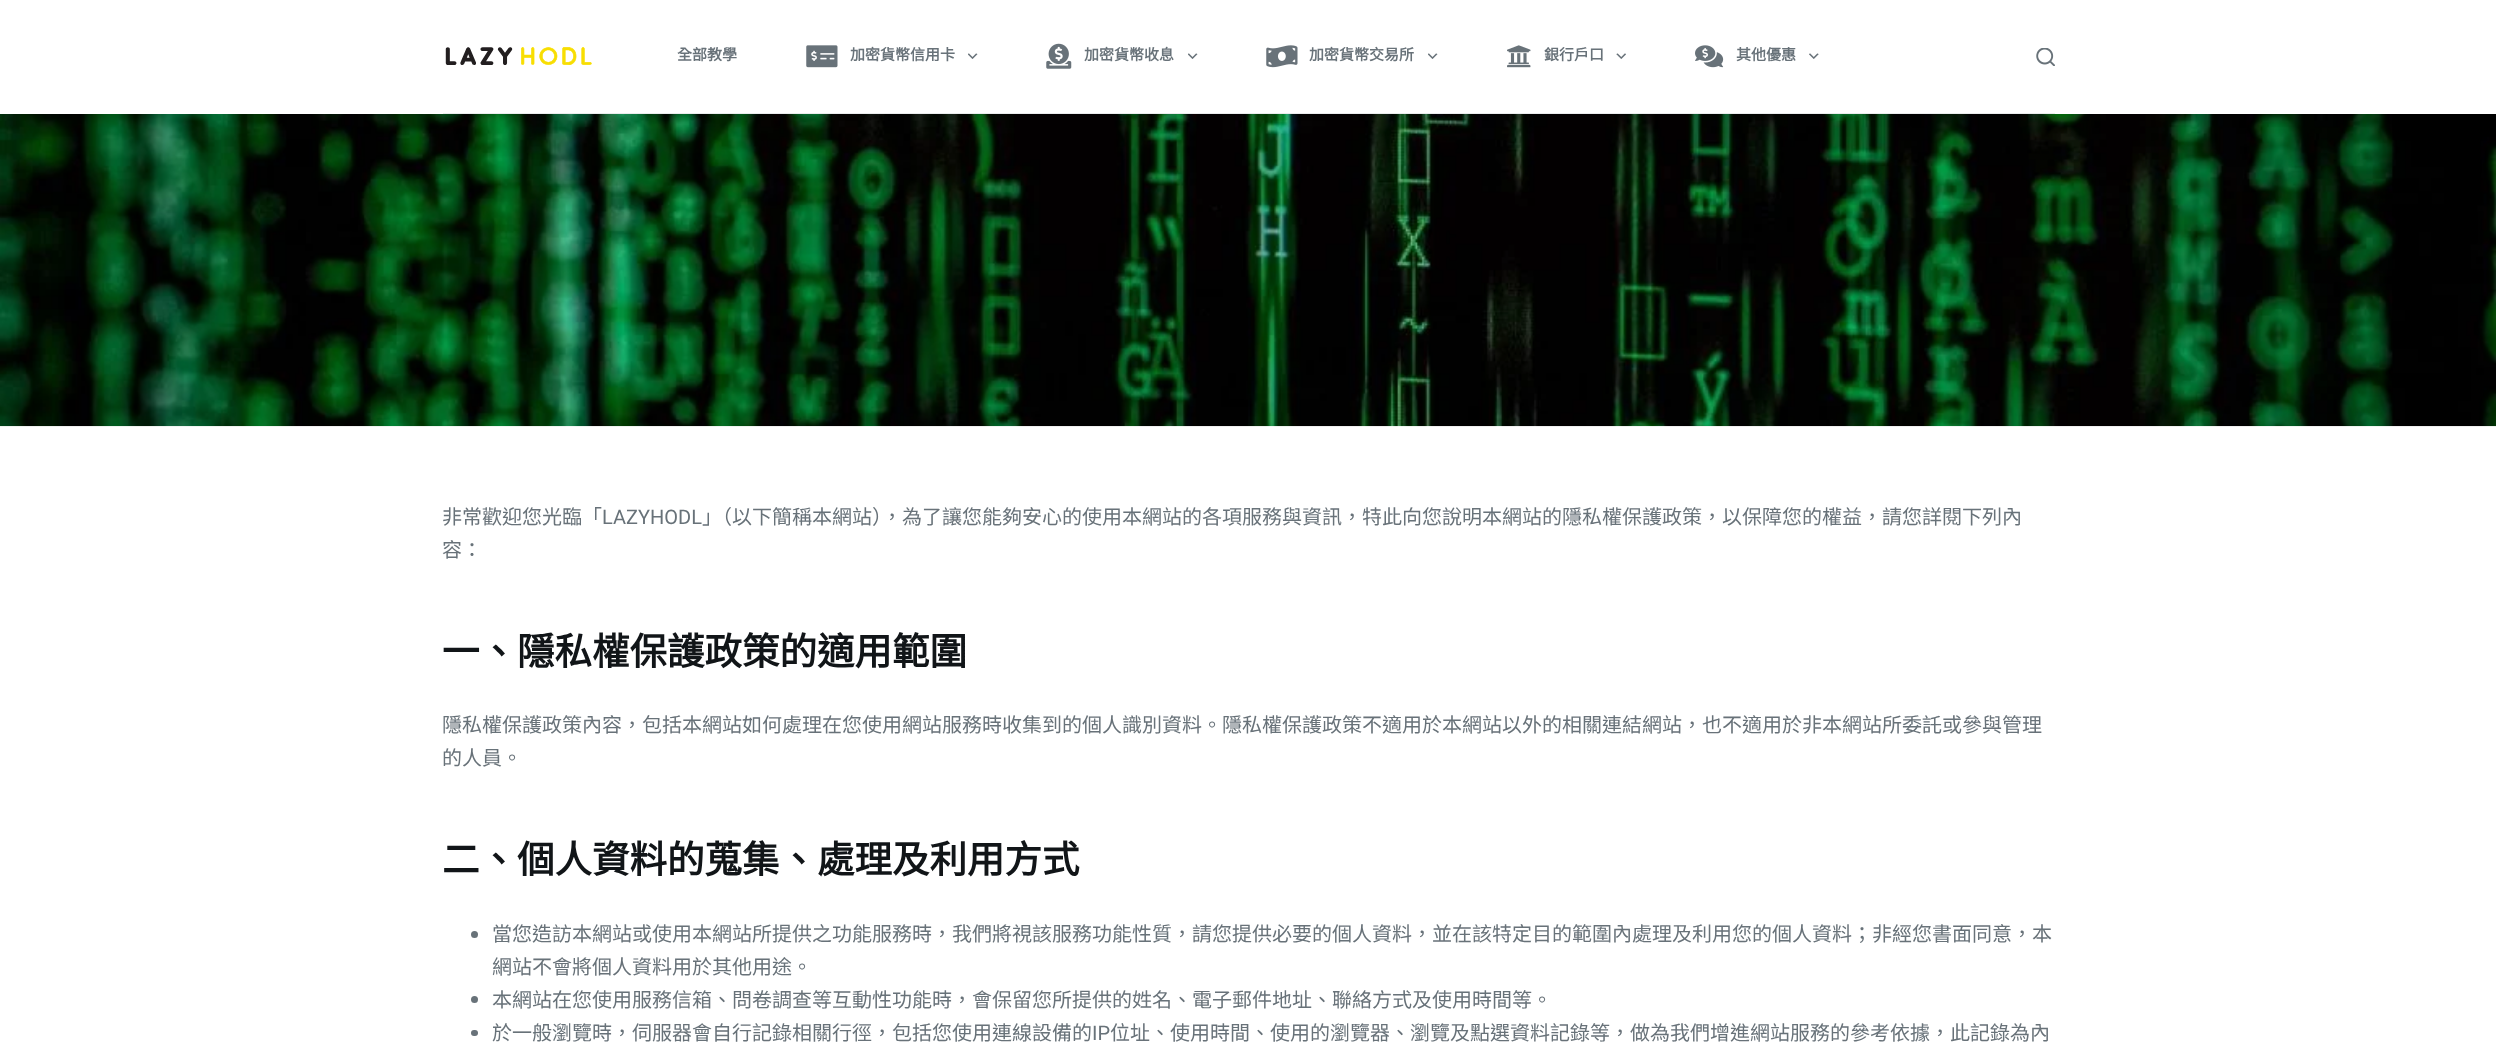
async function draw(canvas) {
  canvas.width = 2496
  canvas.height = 1048
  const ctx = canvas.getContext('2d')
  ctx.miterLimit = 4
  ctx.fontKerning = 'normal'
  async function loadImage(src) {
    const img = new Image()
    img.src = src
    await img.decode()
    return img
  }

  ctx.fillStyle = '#fff'
  ctx.fillRect(0, 0, 2496, 1048)
  ctx.fillStyle = '#eaeced'
  ctx.fillRect(443, 113, 1612, 1)
  ctx.drawImage(await loadImage('image0.png'), 445, 47, 147, 18)
  ctx.font = 'bold 15px Noto Sans CJK TC'
  ctx.fillStyle = '#687279'
  ctx.fillText('全部教學', 677, 60)
  ctx.drawImage(await loadImage('image1.png'), 806, 45, 32, 23)
  ctx.fillText('加密貨幣信用卡', 850, 60)
  ctx.drawImage(await loadImage('image2.png'), 968, 53, 10, 6)
  ctx.drawImage(await loadImage('image3.png'), 1046, 43, 26, 26)
  ctx.fillText('加密貨幣收息', 1084, 60)
  ctx.drawImage(await loadImage('image2.png'), 1188, 53, 10, 6)
  ctx.drawImage(await loadImage('image4.png'), 1266, 45, 32, 23)
  ctx.fillText('加密貨幣交易所', 1309, 60)
  ctx.drawImage(await loadImage('image2.png'), 1428, 53, 10, 6)
  ctx.drawImage(await loadImage('image5.png'), 1507, 45, 24, 23)
  ctx.fillText('銀行戶口', 1544, 60)
  ctx.drawImage(await loadImage('image6.png'), 1616, 53, 10, 6)
  ctx.drawImage(await loadImage('image7.png'), 1695, 45, 29, 23)
  ctx.fillText('其他優惠', 1736, 60)
  ctx.drawImage(await loadImage('image8.png'), 1809, 53, 10, 6)
  ctx.drawImage(await loadImage('image9.png'), 2036, 48, 19, 18)
  ctx.drawImage(await loadImage('image10.png'), 0, 114, 2496, 313)
  ctx.font = '20px Noto Sans CJK TC'
  ctx.fillText('非常歡迎您光臨「', 442, 524)
  ctx.font = '20px Roboto'
  ctx.fillText('LAZYHODL', 602, 524)
  ctx.font = '20px Noto Sans CJK TC'
  ctx.fillText('」（以下簡稱本網站），為了讓您能夠安心的使用本網站的各項服務與資訊，特此向您說明本網站的隱私權保護政策，以保障您的權益，請您詳閱下列內', 702, 524)
  ctx.fillText('容：', 442, 557)
  ctx.font = 'bold 37.5px Noto Sans CJK TC'
  ctx.fillStyle = '#111518'
  ctx.fillText('一、隱私權保護政策的適用範圍', 442, 665)
  ctx.font = '20px Noto Sans CJK TC'
  ctx.fillStyle = '#687279'
  ctx.fillText('隱私權保護政策內容，包括本網站如何處理在您使用網站服務時收集到的個人識別資料。隱私權保護政策不適用於本網站以外的相關連結網站，也不適用於非本網站所委託或參與管理', 442, 732)
  ctx.fillText('的人員。', 442, 765)
  ctx.font = 'bold 37.5px Noto Sans CJK TC'
  ctx.fillStyle = '#111518'
  ctx.fillText('二、個人資料的蒐集、處理及利用方式', 442, 873)
  ctx.fillStyle = '#687279'
  ctx.beginPath()
  ctx.arc(474.5, 934.5, 3.5, 0, 2 * Math.PI)
  ctx.fill()
  ctx.font = '20px Noto Sans CJK TC'
  ctx.fillText('當您造訪本網站或使用本網站所提供之功能服務時，我們將視該服務功能性質，請您提供必要的個人資料，並在該特定目的範圍內處理及利用您的個人資料；非經您書面同意，本', 492, 941)
  ctx.fillText('網站不會將個人資料用於其他用途。', 492, 974)
  ctx.beginPath()
  ctx.arc(474.5, 999.5, 3.5, 0, 2 * Math.PI)
  ctx.fill()
  ctx.fillText('本網站在您使用服務信箱、問卷調查等互動性功能時，會保留您所提供的姓名、電子郵件地址、聯絡方式及使用時間等。', 492, 1007)
  ctx.beginPath()
  ctx.roundRect(471, 1030, 7, 6, 3)
  ctx.fill()
  ctx.fillText('於一般瀏覽時，伺服器會自行記錄相關行徑，包括您使用連線設備的', 492, 1040)
  ctx.font = '20px Roboto'
  ctx.fillText('IP', 1092, 1040)
  ctx.font = '20px Noto Sans CJK TC'
  ctx.fillText('位址、使用時間、使用的瀏覽器、瀏覽及點選資料記錄等，做為我們增進網站服務的參考依據，此記錄為內', 1110, 1040)
}

draw(document.querySelector('canvas'))
